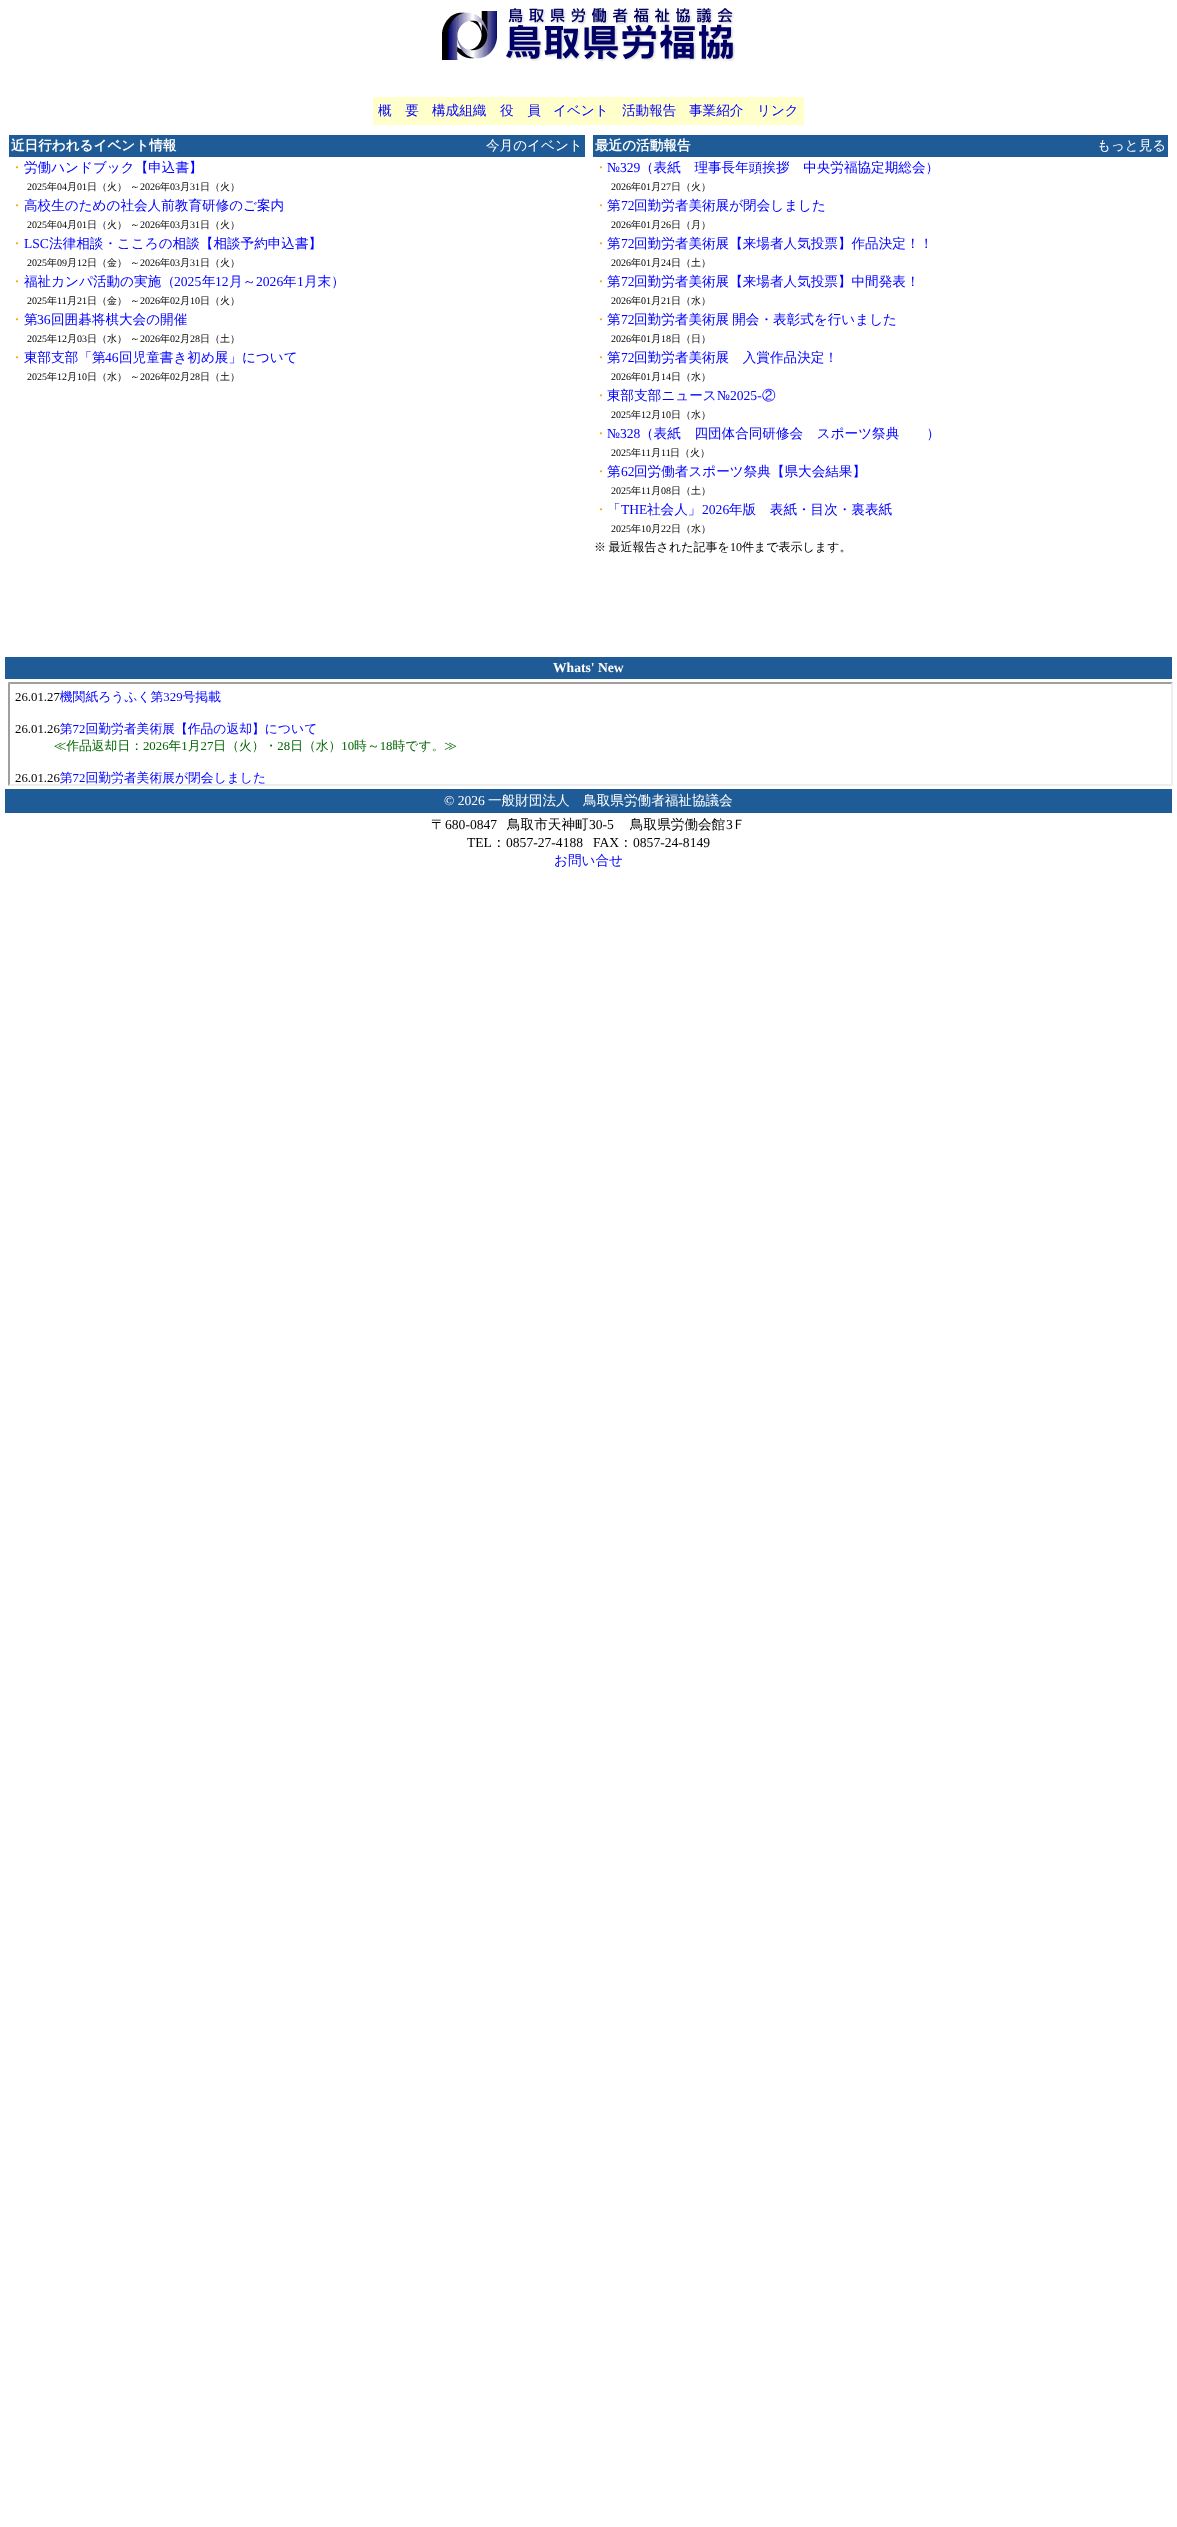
async function draw(canvas) {
  canvas.width = 1177
  canvas.height = 2527
  const ctx = canvas.getContext('2d')
  ctx.miterLimit = 4
  ctx.fontKerning = 'normal'
  async function loadImage(src) {
    const img = new Image()
    img.src = src
    await img.decode()
    return img
  }

  ctx.fillStyle = '#fff'
  ctx.fillRect(0, 0, 1177, 2527)
  ctx.drawImage(await loadImage('image0.png'), 442, 8, 293, 54)
  ctx.fillStyle = '#ffc'
  ctx.fillRect(373, 97, 431, 28)
  ctx.font = '500 13.6px WenQuanYi Zen Hei'
  ctx.fillStyle = '#00f'
  ctx.fillText('概　要', 378, 115)
  ctx.fillText('構成組織', 432, 115)
  ctx.fillText('役　員', 500, 115)
  ctx.fillText('イベント', 553, 115)
  ctx.fillText('活動報告', 622, 115)
  ctx.fillText('事業紹介', 689, 115)
  ctx.fillText('リンク', 757, 115)
  ctx.fillStyle = '#1f5b97'
  ctx.fillRect(9, 135, 576, 22)
  ctx.font = 'bold 13.6px WenQuanYi Zen Hei'
  ctx.fillStyle = '#fff'
  ctx.fillText('近日行われるイベント情報', 11, 150)
  ctx.font = '500 13.6px WenQuanYi Zen Hei'
  ctx.fillText('今月のイベント', 486, 150)
  ctx.fillStyle = '#ffa500'
  ctx.fillText('・', 10, 172)
  ctx.fillStyle = '#00f'
  ctx.fillText('労働ハンドブック【申込書】', 24, 172)
  ctx.font = '10px Liberation Serif'
  ctx.fillStyle = '#000'
  ctx.fillText('2025', 27, 190)
  ctx.font = '500 10px WenQuanYi Zen Hei'
  ctx.fillText('年', 47, 190)
  ctx.font = '10px Liberation Serif'
  ctx.fillText('04', 57, 190)
  ctx.font = '500 10px WenQuanYi Zen Hei'
  ctx.fillText('月', 67, 190)
  ctx.font = '10px Liberation Serif'
  ctx.fillText('01', 77, 190)
  ctx.font = '500 10px WenQuanYi Zen Hei'
  ctx.fillText('日（火） ～', 87, 190)
  ctx.font = '10px Liberation Serif'
  ctx.fillText('2026', 140, 190)
  ctx.font = '500 10px WenQuanYi Zen Hei'
  ctx.fillText('年', 160, 190)
  ctx.font = '10px Liberation Serif'
  ctx.fillText('03', 170, 190)
  ctx.font = '500 10px WenQuanYi Zen Hei'
  ctx.fillText('月', 180, 190)
  ctx.font = '10px Liberation Serif'
  ctx.fillText('31', 190, 190)
  ctx.font = '500 10px WenQuanYi Zen Hei'
  ctx.fillText('日（火）', 200, 190)
  ctx.font = '500 13.6px WenQuanYi Zen Hei'
  ctx.fillStyle = '#ffa500'
  ctx.fillText('・', 10, 210)
  ctx.fillStyle = '#00f'
  ctx.fillText('高校生のための社会人前教育研修のご案内', 24, 210)
  ctx.font = '10px Liberation Serif'
  ctx.fillStyle = '#000'
  ctx.fillText('2025', 27, 228)
  ctx.font = '500 10px WenQuanYi Zen Hei'
  ctx.fillText('年', 47, 228)
  ctx.font = '10px Liberation Serif'
  ctx.fillText('04', 57, 228)
  ctx.font = '500 10px WenQuanYi Zen Hei'
  ctx.fillText('月', 67, 228)
  ctx.font = '10px Liberation Serif'
  ctx.fillText('01', 77, 228)
  ctx.font = '500 10px WenQuanYi Zen Hei'
  ctx.fillText('日（火） ～', 87, 228)
  ctx.font = '10px Liberation Serif'
  ctx.fillText('2026', 140, 228)
  ctx.font = '500 10px WenQuanYi Zen Hei'
  ctx.fillText('年', 160, 228)
  ctx.font = '10px Liberation Serif'
  ctx.fillText('03', 170, 228)
  ctx.font = '500 10px WenQuanYi Zen Hei'
  ctx.fillText('月', 180, 228)
  ctx.font = '10px Liberation Serif'
  ctx.fillText('31', 190, 228)
  ctx.font = '500 10px WenQuanYi Zen Hei'
  ctx.fillText('日（火）', 200, 228)
  ctx.font = '500 13.6px WenQuanYi Zen Hei'
  ctx.fillStyle = '#ffa500'
  ctx.fillText('・', 10, 248)
  ctx.font = '13.6px Liberation Serif'
  ctx.fillStyle = '#00f'
  ctx.fillText('LSC', 24, 248)
  ctx.font = '500 13.6px WenQuanYi Zen Hei'
  ctx.fillText('法律相談・こころの相談【相談予約申込書】', 49, 248)
  ctx.font = '10px Liberation Serif'
  ctx.fillStyle = '#000'
  ctx.fillText('2025', 27, 266)
  ctx.font = '500 10px WenQuanYi Zen Hei'
  ctx.fillText('年', 47, 266)
  ctx.font = '10px Liberation Serif'
  ctx.fillText('09', 57, 266)
  ctx.font = '500 10px WenQuanYi Zen Hei'
  ctx.fillText('月', 67, 266)
  ctx.font = '10px Liberation Serif'
  ctx.fillText('12', 77, 266)
  ctx.font = '500 10px WenQuanYi Zen Hei'
  ctx.fillText('日（金） ～', 87, 266)
  ctx.font = '10px Liberation Serif'
  ctx.fillText('2026', 140, 266)
  ctx.font = '500 10px WenQuanYi Zen Hei'
  ctx.fillText('年', 160, 266)
  ctx.font = '10px Liberation Serif'
  ctx.fillText('03', 170, 266)
  ctx.font = '500 10px WenQuanYi Zen Hei'
  ctx.fillText('月', 180, 266)
  ctx.font = '10px Liberation Serif'
  ctx.fillText('31', 190, 266)
  ctx.font = '500 10px WenQuanYi Zen Hei'
  ctx.fillText('日（火）', 200, 266)
  ctx.font = '500 13.6px WenQuanYi Zen Hei'
  ctx.fillStyle = '#ffa500'
  ctx.fillText('・', 10, 286)
  ctx.fillStyle = '#00f'
  ctx.fillText('福祉カンパ活動の実施（', 24, 286)
  ctx.font = '13.6px Liberation Serif'
  ctx.fillText('2025', 174, 286)
  ctx.font = '500 13.6px WenQuanYi Zen Hei'
  ctx.fillText('年', 202, 286)
  ctx.font = '13.6px Liberation Serif'
  ctx.fillText('12', 215, 286)
  ctx.font = '500 13.6px WenQuanYi Zen Hei'
  ctx.fillText('月～', 229, 286)
  ctx.font = '13.6px Liberation Serif'
  ctx.fillText('2026', 256, 286)
  ctx.font = '500 13.6px WenQuanYi Zen Hei'
  ctx.fillText('年', 283, 286)
  ctx.font = '13.6px Liberation Serif'
  ctx.fillText('1', 297, 286)
  ctx.font = '500 13.6px WenQuanYi Zen Hei'
  ctx.fillText('月末）', 304, 286)
  ctx.font = '10px Liberation Serif'
  ctx.fillStyle = '#000'
  ctx.fillText('2025', 27, 304)
  ctx.font = '500 10px WenQuanYi Zen Hei'
  ctx.fillText('年', 47, 304)
  ctx.font = '10px Liberation Serif'
  ctx.fillText('11', 57, 304)
  ctx.font = '500 10px WenQuanYi Zen Hei'
  ctx.fillText('月', 67, 304)
  ctx.font = '10px Liberation Serif'
  ctx.fillText('21', 77, 304)
  ctx.font = '500 10px WenQuanYi Zen Hei'
  ctx.fillText('日（金） ～', 87, 304)
  ctx.font = '10px Liberation Serif'
  ctx.fillText('2026', 140, 304)
  ctx.font = '500 10px WenQuanYi Zen Hei'
  ctx.fillText('年', 160, 304)
  ctx.font = '10px Liberation Serif'
  ctx.fillText('02', 170, 304)
  ctx.font = '500 10px WenQuanYi Zen Hei'
  ctx.fillText('月', 180, 304)
  ctx.font = '10px Liberation Serif'
  ctx.fillText('10', 190, 304)
  ctx.font = '500 10px WenQuanYi Zen Hei'
  ctx.fillText('日（火）', 200, 304)
  ctx.font = '500 13.6px WenQuanYi Zen Hei'
  ctx.fillStyle = '#ffa500'
  ctx.fillText('・', 10, 324)
  ctx.fillStyle = '#00f'
  ctx.fillText('第', 24, 324)
  ctx.font = '13.6px Liberation Serif'
  ctx.fillText('36', 37, 324)
  ctx.font = '500 13.6px WenQuanYi Zen Hei'
  ctx.fillText('回囲碁将棋大会の開催', 51, 324)
  ctx.font = '10px Liberation Serif'
  ctx.fillStyle = '#000'
  ctx.fillText('2025', 27, 342)
  ctx.font = '500 10px WenQuanYi Zen Hei'
  ctx.fillText('年', 47, 342)
  ctx.font = '10px Liberation Serif'
  ctx.fillText('12', 57, 342)
  ctx.font = '500 10px WenQuanYi Zen Hei'
  ctx.fillText('月', 67, 342)
  ctx.font = '10px Liberation Serif'
  ctx.fillText('03', 77, 342)
  ctx.font = '500 10px WenQuanYi Zen Hei'
  ctx.fillText('日（水） ～', 87, 342)
  ctx.font = '10px Liberation Serif'
  ctx.fillText('2026', 140, 342)
  ctx.font = '500 10px WenQuanYi Zen Hei'
  ctx.fillText('年', 160, 342)
  ctx.font = '10px Liberation Serif'
  ctx.fillText('02', 170, 342)
  ctx.font = '500 10px WenQuanYi Zen Hei'
  ctx.fillText('月', 180, 342)
  ctx.font = '10px Liberation Serif'
  ctx.fillText('28', 190, 342)
  ctx.font = '500 10px WenQuanYi Zen Hei'
  ctx.fillText('日（土）', 200, 342)
  ctx.font = '500 13.6px WenQuanYi Zen Hei'
  ctx.fillStyle = '#ffa500'
  ctx.fillText('・', 10, 362)
  ctx.fillStyle = '#00f'
  ctx.fillText('東部支部「第', 24, 362)
  ctx.font = '13.6px Liberation Serif'
  ctx.fillText('46', 105, 362)
  ctx.font = '500 13.6px WenQuanYi Zen Hei'
  ctx.fillText('回児童書き初め展」について', 119, 362)
  ctx.font = '10px Liberation Serif'
  ctx.fillStyle = '#000'
  ctx.fillText('2025', 27, 380)
  ctx.font = '500 10px WenQuanYi Zen Hei'
  ctx.fillText('年', 47, 380)
  ctx.font = '10px Liberation Serif'
  ctx.fillText('12', 57, 380)
  ctx.font = '500 10px WenQuanYi Zen Hei'
  ctx.fillText('月', 67, 380)
  ctx.font = '10px Liberation Serif'
  ctx.fillText('10', 77, 380)
  ctx.font = '500 10px WenQuanYi Zen Hei'
  ctx.fillText('日（水） ～', 87, 380)
  ctx.font = '10px Liberation Serif'
  ctx.fillText('2026', 140, 380)
  ctx.font = '500 10px WenQuanYi Zen Hei'
  ctx.fillText('年', 160, 380)
  ctx.font = '10px Liberation Serif'
  ctx.fillText('02', 170, 380)
  ctx.font = '500 10px WenQuanYi Zen Hei'
  ctx.fillText('月', 180, 380)
  ctx.font = '10px Liberation Serif'
  ctx.fillText('28', 190, 380)
  ctx.font = '500 10px WenQuanYi Zen Hei'
  ctx.fillText('日（土）', 200, 380)
  ctx.fillStyle = '#1f5b97'
  ctx.fillRect(593, 135, 575, 22)
  ctx.font = 'bold 13.6px WenQuanYi Zen Hei'
  ctx.fillStyle = '#fff'
  ctx.fillText('最近の活動報告', 595, 150)
  ctx.font = '500 13.6px WenQuanYi Zen Hei'
  ctx.fillText('もっと見る', 1097, 150)
  ctx.fillStyle = '#ffa500'
  ctx.fillText('・', 594, 172)
  ctx.font = '13.6px Liberation Serif'
  ctx.fillStyle = '#00f'
  ctx.fillText('№329', 607, 172)
  ctx.font = '500 13.6px WenQuanYi Zen Hei'
  ctx.fillText('（表紙　理事長年頭挨拶　中央労福協定期総会）', 640, 172)
  ctx.font = '10px Liberation Serif'
  ctx.fillStyle = '#000'
  ctx.fillText('2026', 611, 190)
  ctx.font = '500 10px WenQuanYi Zen Hei'
  ctx.fillText('年', 631, 190)
  ctx.font = '10px Liberation Serif'
  ctx.fillText('01', 641, 190)
  ctx.font = '500 10px WenQuanYi Zen Hei'
  ctx.fillText('月', 651, 190)
  ctx.font = '10px Liberation Serif'
  ctx.fillText('27', 661, 190)
  ctx.font = '500 10px WenQuanYi Zen Hei'
  ctx.fillText('日（火）', 671, 190)
  ctx.font = '500 13.6px WenQuanYi Zen Hei'
  ctx.fillStyle = '#ffa500'
  ctx.fillText('・', 594, 210)
  ctx.fillStyle = '#00f'
  ctx.fillText('第', 607, 210)
  ctx.font = '13.6px Liberation Serif'
  ctx.fillText('72', 621, 210)
  ctx.font = '500 13.6px WenQuanYi Zen Hei'
  ctx.fillText('回勤労者美術展が閉会しました', 634, 210)
  ctx.font = '10px Liberation Serif'
  ctx.fillStyle = '#000'
  ctx.fillText('2026', 611, 228)
  ctx.font = '500 10px WenQuanYi Zen Hei'
  ctx.fillText('年', 631, 228)
  ctx.font = '10px Liberation Serif'
  ctx.fillText('01', 641, 228)
  ctx.font = '500 10px WenQuanYi Zen Hei'
  ctx.fillText('月', 651, 228)
  ctx.font = '10px Liberation Serif'
  ctx.fillText('26', 661, 228)
  ctx.font = '500 10px WenQuanYi Zen Hei'
  ctx.fillText('日（月）', 671, 228)
  ctx.font = '500 13.6px WenQuanYi Zen Hei'
  ctx.fillStyle = '#ffa500'
  ctx.fillText('・', 594, 248)
  ctx.fillStyle = '#00f'
  ctx.fillText('第', 607, 248)
  ctx.font = '13.6px Liberation Serif'
  ctx.fillText('72', 621, 248)
  ctx.font = '500 13.6px WenQuanYi Zen Hei'
  ctx.fillText('回勤労者美術展【来場者人気投票】作品決定！！', 634, 248)
  ctx.font = '10px Liberation Serif'
  ctx.fillStyle = '#000'
  ctx.fillText('2026', 611, 266)
  ctx.font = '500 10px WenQuanYi Zen Hei'
  ctx.fillText('年', 631, 266)
  ctx.font = '10px Liberation Serif'
  ctx.fillText('01', 641, 266)
  ctx.font = '500 10px WenQuanYi Zen Hei'
  ctx.fillText('月', 651, 266)
  ctx.font = '10px Liberation Serif'
  ctx.fillText('24', 661, 266)
  ctx.font = '500 10px WenQuanYi Zen Hei'
  ctx.fillText('日（土）', 671, 266)
  ctx.font = '500 13.6px WenQuanYi Zen Hei'
  ctx.fillStyle = '#ffa500'
  ctx.fillText('・', 594, 286)
  ctx.fillStyle = '#00f'
  ctx.fillText('第', 607, 286)
  ctx.font = '13.6px Liberation Serif'
  ctx.fillText('72', 621, 286)
  ctx.font = '500 13.6px WenQuanYi Zen Hei'
  ctx.fillText('回勤労者美術展【来場者人気投票】中間発表！', 634, 286)
  ctx.font = '10px Liberation Serif'
  ctx.fillStyle = '#000'
  ctx.fillText('2026', 611, 304)
  ctx.font = '500 10px WenQuanYi Zen Hei'
  ctx.fillText('年', 631, 304)
  ctx.font = '10px Liberation Serif'
  ctx.fillText('01', 641, 304)
  ctx.font = '500 10px WenQuanYi Zen Hei'
  ctx.fillText('月', 651, 304)
  ctx.font = '10px Liberation Serif'
  ctx.fillText('21', 661, 304)
  ctx.font = '500 10px WenQuanYi Zen Hei'
  ctx.fillText('日（水）', 671, 304)
  ctx.font = '500 13.6px WenQuanYi Zen Hei'
  ctx.fillStyle = '#ffa500'
  ctx.fillText('・', 594, 324)
  ctx.fillStyle = '#00f'
  ctx.fillText('第', 607, 324)
  ctx.font = '13.6px Liberation Serif'
  ctx.fillText('72', 621, 324)
  ctx.wordSpacing = '-1px'
  ctx.font = '500 13.6px WenQuanYi Zen Hei'
  ctx.fillText('回勤労者美術展 開会・表彰式を行いました', 634, 324)
  ctx.wordSpacing = '0px'
  ctx.font = '10px Liberation Serif'
  ctx.fillStyle = '#000'
  ctx.fillText('2026', 611, 342)
  ctx.font = '500 10px WenQuanYi Zen Hei'
  ctx.fillText('年', 631, 342)
  ctx.font = '10px Liberation Serif'
  ctx.fillText('01', 641, 342)
  ctx.font = '500 10px WenQuanYi Zen Hei'
  ctx.fillText('月', 651, 342)
  ctx.font = '10px Liberation Serif'
  ctx.fillText('18', 661, 342)
  ctx.font = '500 10px WenQuanYi Zen Hei'
  ctx.fillText('日（日）', 671, 342)
  ctx.font = '500 13.6px WenQuanYi Zen Hei'
  ctx.fillStyle = '#ffa500'
  ctx.fillText('・', 594, 362)
  ctx.fillStyle = '#00f'
  ctx.fillText('第', 607, 362)
  ctx.font = '13.6px Liberation Serif'
  ctx.fillText('72', 621, 362)
  ctx.font = '500 13.6px WenQuanYi Zen Hei'
  ctx.fillText('回勤労者美術展　入賞作品決定！', 634, 362)
  ctx.font = '10px Liberation Serif'
  ctx.fillStyle = '#000'
  ctx.fillText('2026', 611, 380)
  ctx.font = '500 10px WenQuanYi Zen Hei'
  ctx.fillText('年', 631, 380)
  ctx.font = '10px Liberation Serif'
  ctx.fillText('01', 641, 380)
  ctx.font = '500 10px WenQuanYi Zen Hei'
  ctx.fillText('月', 651, 380)
  ctx.font = '10px Liberation Serif'
  ctx.fillText('14', 661, 380)
  ctx.font = '500 10px WenQuanYi Zen Hei'
  ctx.fillText('日（水）', 671, 380)
  ctx.font = '500 13.6px WenQuanYi Zen Hei'
  ctx.fillStyle = '#ffa500'
  ctx.fillText('・', 594, 400)
  ctx.fillStyle = '#00f'
  ctx.fillText('東部支部ニュース', 607, 400)
  ctx.font = '13.6px Liberation Serif'
  ctx.fillText('№2025-', 717, 400)
  ctx.font = '500 13.6px WenQuanYi Zen Hei'
  ctx.fillText('②', 762, 400)
  ctx.font = '10px Liberation Serif'
  ctx.fillStyle = '#000'
  ctx.fillText('2025', 611, 418)
  ctx.font = '500 10px WenQuanYi Zen Hei'
  ctx.fillText('年', 631, 418)
  ctx.font = '10px Liberation Serif'
  ctx.fillText('12', 641, 418)
  ctx.font = '500 10px WenQuanYi Zen Hei'
  ctx.fillText('月', 651, 418)
  ctx.font = '10px Liberation Serif'
  ctx.fillText('10', 661, 418)
  ctx.font = '500 10px WenQuanYi Zen Hei'
  ctx.fillText('日（水）', 671, 418)
  ctx.font = '500 13.6px WenQuanYi Zen Hei'
  ctx.fillStyle = '#ffa500'
  ctx.fillText('・', 594, 438)
  ctx.font = '13.6px Liberation Serif'
  ctx.fillStyle = '#00f'
  ctx.fillText('№328', 607, 438)
  ctx.font = '500 13.6px WenQuanYi Zen Hei'
  ctx.fillText('（表紙　四団体合同研修会　スポーツ祭典　　）', 640, 438)
  ctx.font = '10px Liberation Serif'
  ctx.fillStyle = '#000'
  ctx.fillText('2025', 611, 456)
  ctx.font = '500 10px WenQuanYi Zen Hei'
  ctx.fillText('年', 631, 456)
  ctx.font = '10px Liberation Serif'
  ctx.fillText('11', 641, 456)
  ctx.font = '500 10px WenQuanYi Zen Hei'
  ctx.fillText('月', 651, 456)
  ctx.font = '10px Liberation Serif'
  ctx.fillText('11', 661, 456)
  ctx.font = '500 10px WenQuanYi Zen Hei'
  ctx.fillText('日（火）', 670, 456)
  ctx.font = '500 13.6px WenQuanYi Zen Hei'
  ctx.fillStyle = '#ffa500'
  ctx.fillText('・', 594, 476)
  ctx.fillStyle = '#00f'
  ctx.fillText('第', 607, 476)
  ctx.font = '13.6px Liberation Serif'
  ctx.fillText('62', 621, 476)
  ctx.font = '500 13.6px WenQuanYi Zen Hei'
  ctx.fillText('回労働者スポーツ祭典【県大会結果】', 634, 476)
  ctx.font = '10px Liberation Serif'
  ctx.fillStyle = '#000'
  ctx.fillText('2025', 611, 494)
  ctx.font = '500 10px WenQuanYi Zen Hei'
  ctx.fillText('年', 631, 494)
  ctx.font = '10px Liberation Serif'
  ctx.fillText('11', 641, 494)
  ctx.font = '500 10px WenQuanYi Zen Hei'
  ctx.fillText('月', 651, 494)
  ctx.font = '10px Liberation Serif'
  ctx.fillText('08', 661, 494)
  ctx.font = '500 10px WenQuanYi Zen Hei'
  ctx.fillText('日（土）', 671, 494)
  ctx.font = '500 13.6px WenQuanYi Zen Hei'
  ctx.fillStyle = '#ffa500'
  ctx.fillText('・', 594, 514)
  ctx.fillStyle = '#00f'
  ctx.fillText('「', 607, 514)
  ctx.font = '13.6px Liberation Serif'
  ctx.fillText('THE', 621, 514)
  ctx.font = '500 13.6px WenQuanYi Zen Hei'
  ctx.fillText('社会人」', 647, 514)
  ctx.font = '13.6px Liberation Serif'
  ctx.fillText('2026', 702, 514)
  ctx.font = '500 13.6px WenQuanYi Zen Hei'
  ctx.fillText('年版　表紙・目次・裏表紙', 729, 514)
  ctx.font = '10px Liberation Serif'
  ctx.fillStyle = '#000'
  ctx.fillText('2025', 611, 532)
  ctx.font = '500 10px WenQuanYi Zen Hei'
  ctx.fillText('年', 631, 532)
  ctx.font = '10px Liberation Serif'
  ctx.fillText('10', 641, 532)
  ctx.font = '500 10px WenQuanYi Zen Hei'
  ctx.fillText('月', 651, 532)
  ctx.font = '10px Liberation Serif'
  ctx.fillText('22', 661, 532)
  ctx.font = '500 10px WenQuanYi Zen Hei'
  ctx.fillText('日（水）', 671, 532)
  ctx.wordSpacing = '-1px'
  ctx.font = '500 12px WenQuanYi Zen Hei'
  ctx.fillText('※ 最近報告された記事を', 594, 551)
  ctx.wordSpacing = '0px'
  ctx.font = '12px Liberation Serif'
  ctx.fillText('10', 730, 551)
  ctx.font = '500 12px WenQuanYi Zen Hei'
  ctx.fillText('件まで表示します。', 742, 551)
  ctx.fillStyle = '#1f5b97'
  ctx.fillRect(5, 657, 1167, 22)
  ctx.font = 'bold 13.6px Liberation Serif'
  ctx.fillStyle = '#fff'
  ctx.fillText('Whats\' New', 553, 672)
  ctx.fillStyle = '#9f9f9f'
  ctx.beginPath()
  ctx.moveTo(8, 682)
  ctx.lineTo(1173, 682)
  ctx.lineTo(1171, 684)
  ctx.lineTo(10, 684)
  ctx.closePath()
  ctx.fill()
  ctx.fillStyle = '#eee'
  ctx.beginPath()
  ctx.moveTo(1173, 682)
  ctx.lineTo(1173, 786)
  ctx.lineTo(1171, 784)
  ctx.lineTo(1171, 684)
  ctx.closePath()
  ctx.fill()
  ctx.beginPath()
  ctx.moveTo(1173, 786)
  ctx.lineTo(8, 786)
  ctx.lineTo(10, 784)
  ctx.lineTo(1171, 784)
  ctx.closePath()
  ctx.fill()
  ctx.fillStyle = '#9f9f9f'
  ctx.beginPath()
  ctx.moveTo(8, 786)
  ctx.lineTo(8, 682)
  ctx.lineTo(10, 684)
  ctx.lineTo(10, 784)
  ctx.closePath()
  ctx.fill()
  ctx.drawImage(await loadImage('image1.png'), 15, 690, 442, 94)
  ctx.fillStyle = '#1f5b97'
  ctx.fillRect(5, 789, 1167, 24)
  ctx.font = '13.6px Liberation Serif'
  ctx.fillStyle = '#fff'
  ctx.fillText('© 2026', 444, 805)
  ctx.font = '500 13.6px WenQuanYi Zen Hei'
  ctx.fillText('一般財団法人　鳥取県労働者福祉協議会', 488, 805)
  ctx.fillStyle = '#000'
  ctx.fillText('〒', 431, 829)
  ctx.font = '13.6px Liberation Serif'
  ctx.fillText('680-0847', 445, 829)
  ctx.font = '500 13.6px WenQuanYi Zen Hei'
  ctx.fillText('鳥取市天神町', 507, 829)
  ctx.font = '13.6px Liberation Serif'
  ctx.fillText('30-5', 589, 829)
  ctx.font = '500 13.6px WenQuanYi Zen Hei'
  ctx.fillText('鳥取県労働会館', 630, 829)
  ctx.font = '13.6px Liberation Serif'
  ctx.fillText('3', 726, 829)
  ctx.font = '500 13.6px WenQuanYi Zen Hei'
  ctx.fillText('Ｆ', 732, 829)
  ctx.font = '13.6px Liberation Serif'
  ctx.fillText('TEL', 467, 847)
  ctx.font = '500 13.6px WenQuanYi Zen Hei'
  ctx.fillText('：', 492, 847)
  ctx.font = '13.6px Liberation Serif'
  ctx.fillText('0857-27-4188', 506, 847)
  ctx.fillText('FAX', 593, 847)
  ctx.font = '500 13.6px WenQuanYi Zen Hei'
  ctx.fillText('：', 619, 847)
  ctx.font = '13.6px Liberation Serif'
  ctx.fillText('0857-24-8149', 633, 847)
  ctx.font = '500 13.6px WenQuanYi Zen Hei'
  ctx.fillStyle = '#00f'
  ctx.fillText('お問い合せ', 554, 865)
}

draw(document.querySelector('canvas'))
